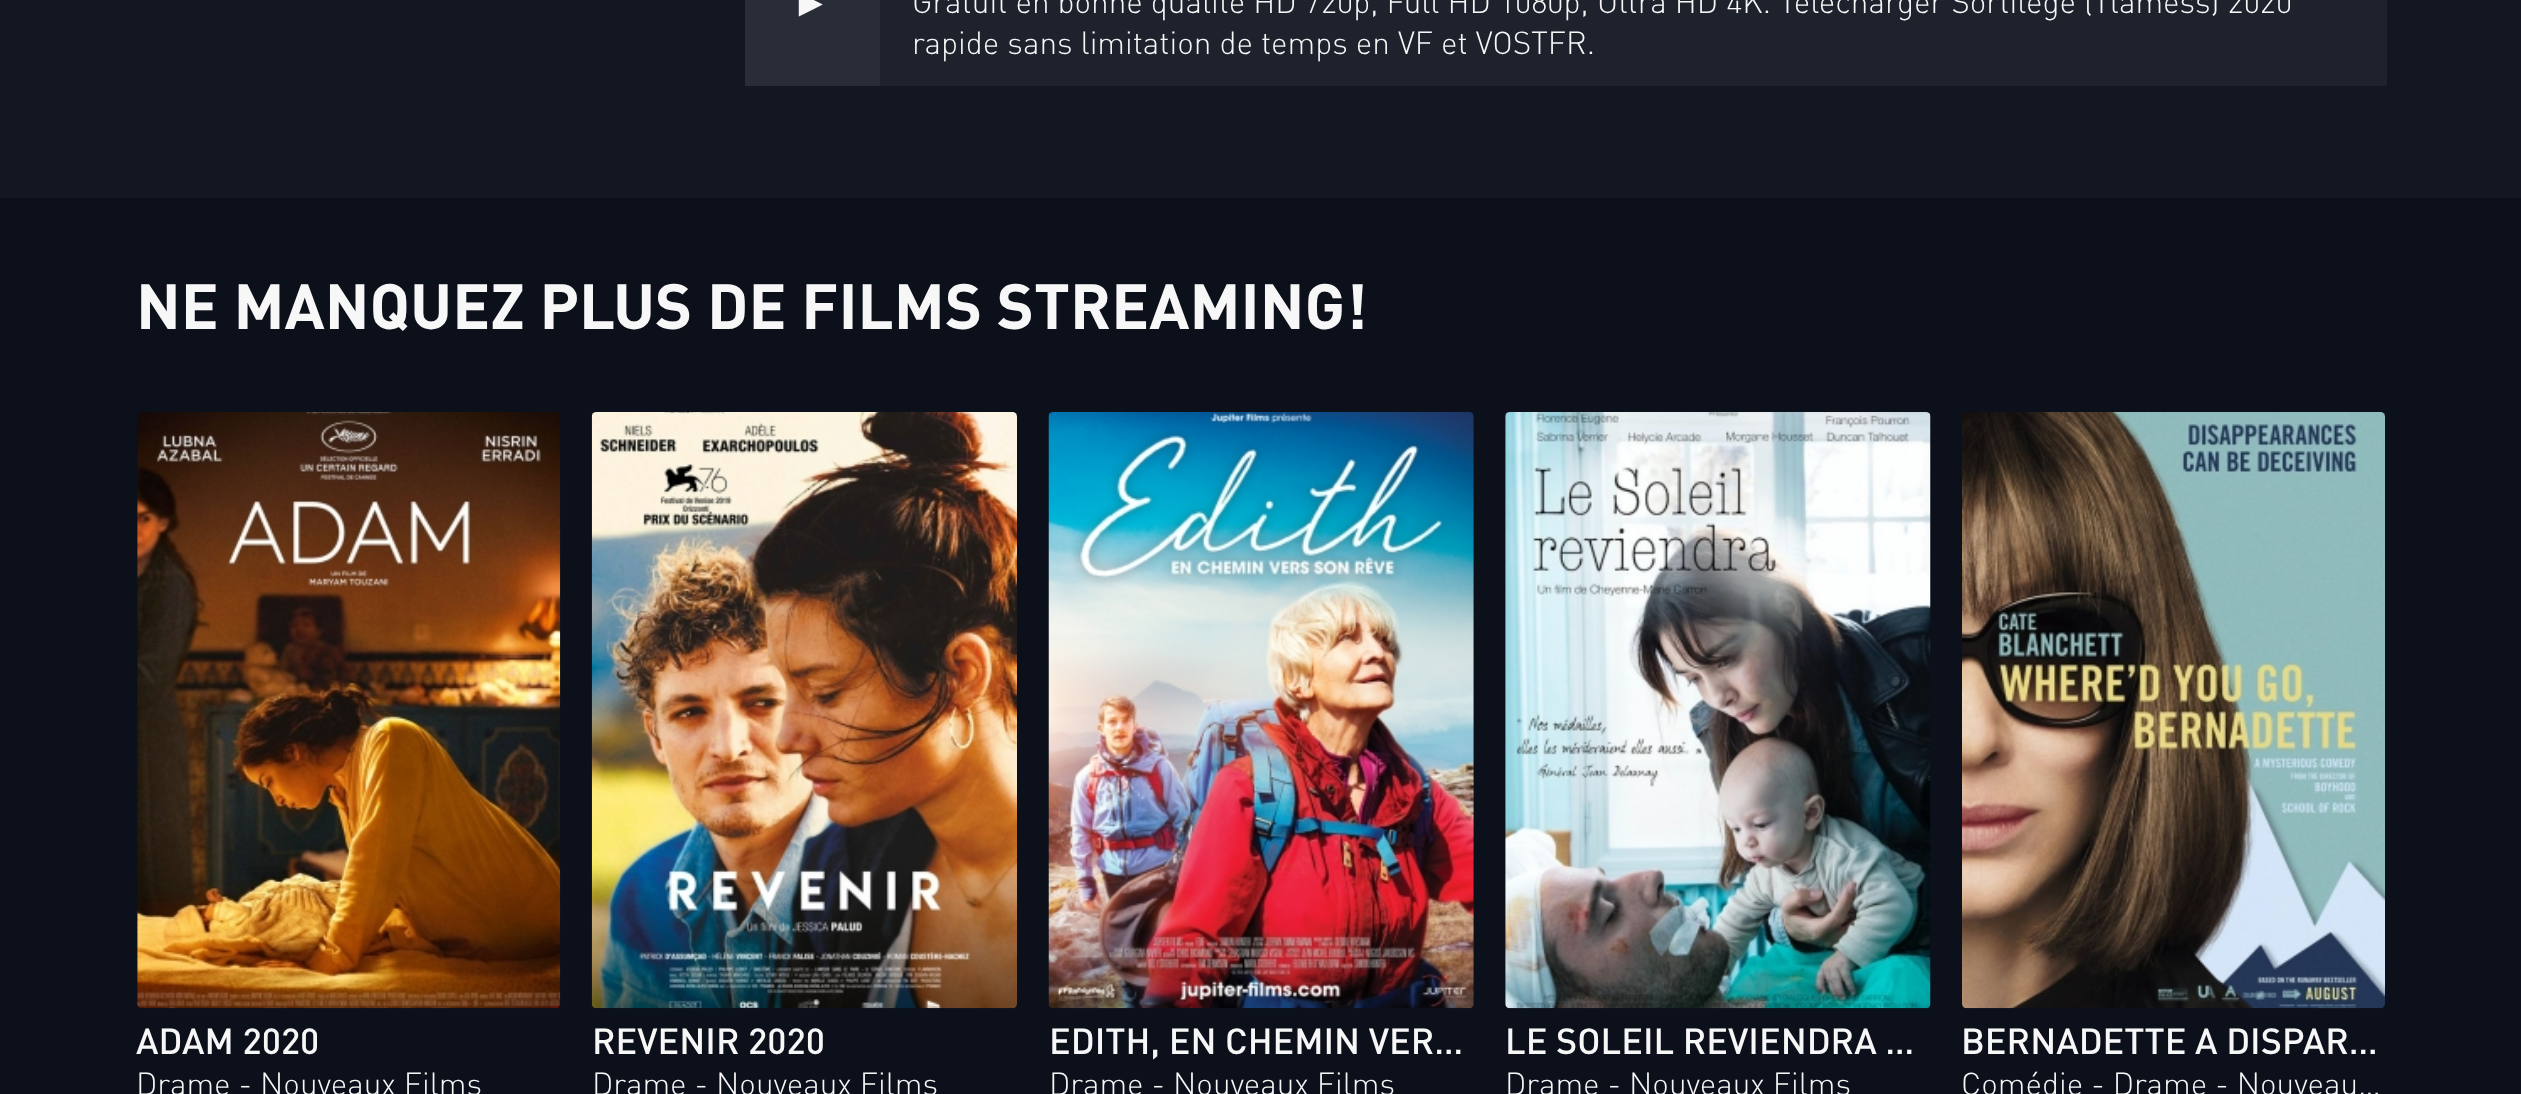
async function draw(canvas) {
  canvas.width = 2521
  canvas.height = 1094
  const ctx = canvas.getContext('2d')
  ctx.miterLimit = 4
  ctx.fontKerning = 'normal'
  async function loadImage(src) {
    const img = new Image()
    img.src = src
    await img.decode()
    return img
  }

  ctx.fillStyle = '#131722'
  ctx.fillRect(0, 0, 2521, 1094)
  ctx.fillStyle = '#1e222d'
  ctx.fillRect(880, 0, 1507, 86)
  ctx.fillStyle = '#292d38'
  ctx.fillRect(745, 0, 135, 86)
  ctx.font = '40px Liberation Sans'
  ctx.fillStyle = '#f7f7f7'
  ctx.fillText('►', 791, 16)
  ctx.font = '300 31.5px DIN'
  ctx.fillText('Gratuit en bonne qualité HD 720p, Full HD 1080p, Ultra HD 4K. Télécharger Sortilège (Tlamess) 2020', 912, 13)
  ctx.fillText('rapide sans limitation de temps en VF et VOSTFR.', 912, 54)
  ctx.fillStyle = '#0c101b'
  ctx.fillRect(0, 198, 2521, 896)
  ctx.font = 'bold 63px DIN'
  ctx.fillStyle = '#f7f7f7'
  ctx.fillText('NE MANQUEZ PLUS DE FILMS STREAMING!', 136, 329)
  ctx.drawImage(await loadImage('image0.png'), 137, 412, 424, 597)
  ctx.font = '500 36px DIN'
  ctx.fillText('ADAM 2020', 136, 1054)
  ctx.font = '300 31.5px DIN'
  ctx.fillText('Drame - Nouveaux Films', 136, 1095)
  ctx.drawImage(await loadImage('image1.png'), 591, 412, 426, 597)
  ctx.font = '500 36px DIN'
  ctx.fillText('REVENIR 2020', 592, 1054)
  ctx.font = '300 31.5px DIN'
  ctx.fillText('Drame - Nouveaux Films', 592, 1095)
  ctx.drawImage(await loadImage('image2.png'), 1048, 412, 426, 597)
  ctx.font = '500 36px DIN'
  ctx.fillText('EDITH, EN CHEMIN VER…', 1049, 1054)
  ctx.font = '300 31.5px DIN'
  ctx.fillText('Drame - Nouveaux Films', 1049, 1095)
  ctx.drawImage(await loadImage('image3.png'), 1505, 412, 426, 597)
  ctx.font = '500 36px DIN'
  ctx.fillText('LE SOLEIL REVIENDRA …', 1505, 1054)
  ctx.font = '300 31.5px DIN'
  ctx.fillText('Drame - Nouveaux Films', 1505, 1095)
  ctx.drawImage(await loadImage('image4.png'), 1962, 412, 423, 597)
  ctx.font = '500 36px DIN'
  ctx.fillText('BERNADETTE A DISPAR…', 1961, 1054)
  ctx.font = '300 31.5px DIN'
  ctx.fillText('Comédie - Drame - Nouveau…', 1961, 1095)
}

draw(document.querySelector('canvas'))
